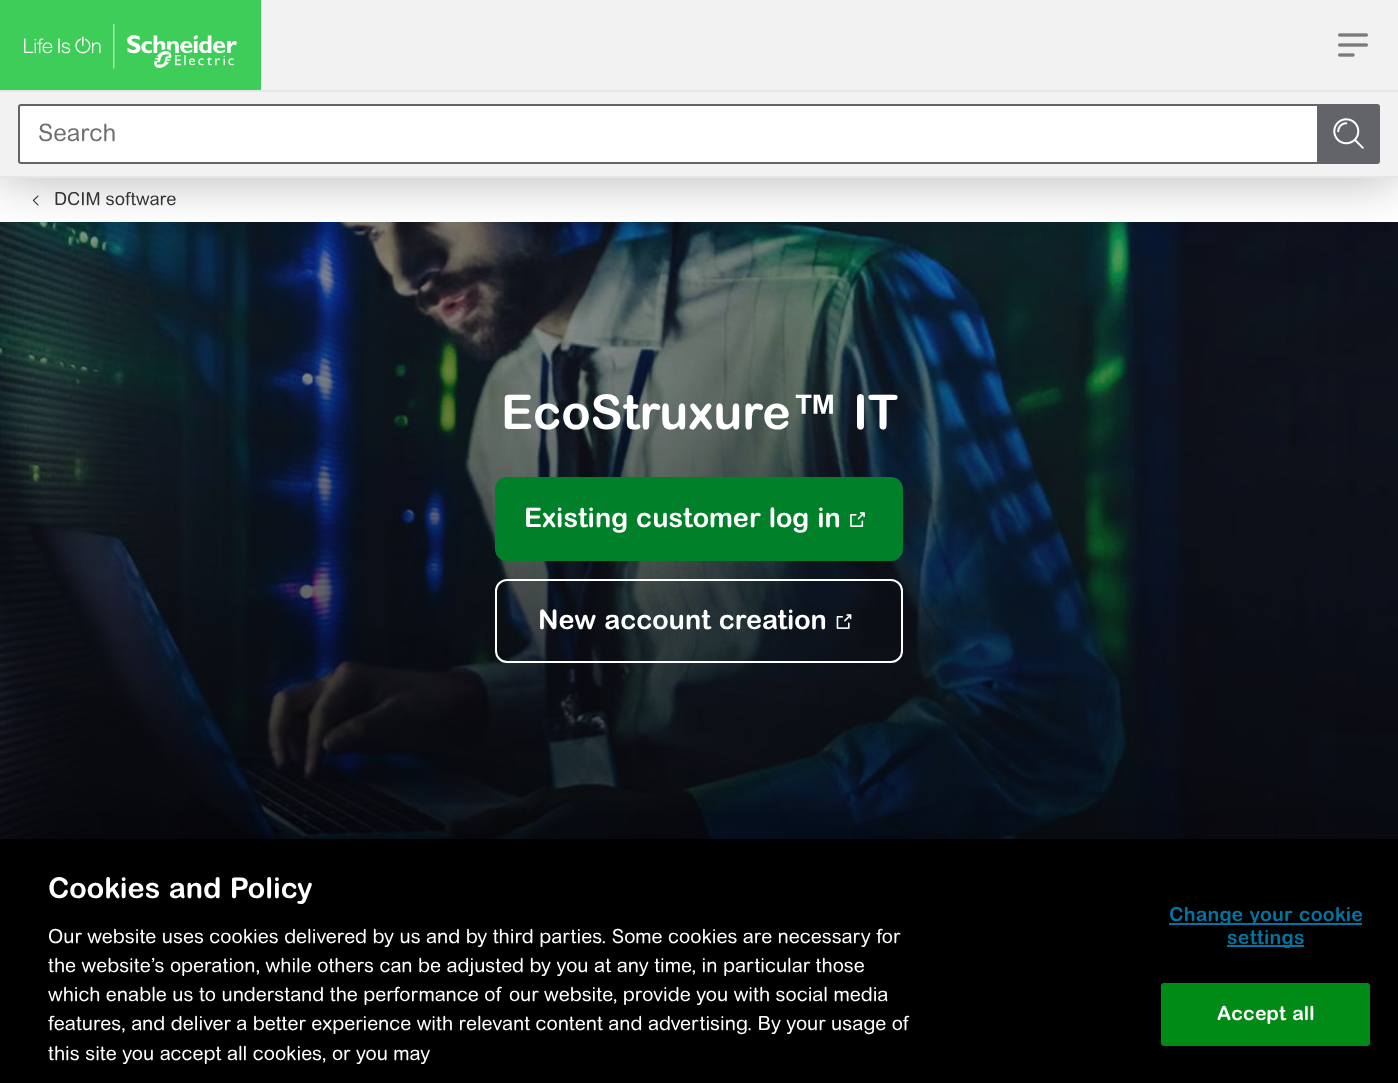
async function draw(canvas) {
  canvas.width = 1398
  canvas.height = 1083
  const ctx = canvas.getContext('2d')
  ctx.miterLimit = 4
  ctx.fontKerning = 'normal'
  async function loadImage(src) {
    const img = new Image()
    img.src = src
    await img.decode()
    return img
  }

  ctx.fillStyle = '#fff'
  ctx.fillRect(0, 0, 1398, 1083)
  ctx.drawImage(await loadImage('image3.png'), 32, 195, 7, 11)
  ctx.drawImage(await loadImage('image4.png'), 0, 222, 1398, 617)
  ctx.fillStyle = '#00000040'
  ctx.filter = 'blur(24px)'
  ctx.beginPath()
  ctx.rect(0, 6, 1398, 177)
  ctx.fill()
  ctx.filter = 'none'
  ctx.fillStyle = '#f3f2f2'
  ctx.fillRect(0, 0, 1398, 176)
  ctx.fillStyle = '#e7e6e6'
  ctx.fillRect(0, 176, 1398, 2)
  ctx.fillStyle = '#3dcd58'
  ctx.fillRect(0, 0, 261, 90)
  ctx.drawImage(await loadImage('image0.png'), 24, 24, 213, 45)
  ctx.drawImage(await loadImage('image1.png'), 1338, 33, 30, 24)
  ctx.fillStyle = '#e7e6e6'
  ctx.fillRect(0, 90, 1398, 2)
  ctx.fillStyle = '#fff'
  ctx.beginPath()
  ctx.roundRect(19, 105, 1299, 58, [2, 0, 0, 2])
  ctx.fill()
  ctx.strokeStyle = '#626469'
  ctx.lineWidth = 2
  ctx.stroke()
  ctx.font = '24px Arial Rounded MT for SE'
  ctx.fillStyle = '#6f6f6f'
  ctx.fillText('Search', 38, 141)
  ctx.fillStyle = '#626469'
  ctx.beginPath()
  ctx.roundRect(1319, 104, 61, 60, [0, 3, 3, 0])
  ctx.fill()
  ctx.drawImage(await loadImage('image2.png'), 1333, 118, 31, 31)
  ctx.font = '18px Arial Rounded MT for SE'
  ctx.fillStyle = '#333'
  ctx.fillText('DCIM software', 54, 205)
  ctx.font = 'bold 48px Arial Rounded MT for SE'
  ctx.fillStyle = '#fff'
  ctx.fillText('EcoStruxure™ IT', 501, 429)
  ctx.fillStyle = '#008029'
  ctx.beginPath()
  ctx.roundRect(495, 477, 408, 84, 12)
  ctx.fill()
  ctx.font = 'bold 27px Arial Rounded MT for SE'
  ctx.fillStyle = '#fff'
  ctx.fillText('Existing customer log in', 524, 527)
  ctx.drawImage(await loadImage('image5.png'), 850, 512, 15, 15)
  ctx.beginPath()
  ctx.roundRect(496, 580, 406, 82, 11)
  ctx.strokeStyle = '#fff'
  ctx.stroke()
  ctx.fillText('New account creation', 538, 629)
  ctx.drawImage(await loadImage('image6.png'), 836, 614, 16, 15)
  ctx.fillStyle = '#00000033'
  ctx.filter = 'blur(13.5px)'
  ctx.beginPath()
  ctx.rect(0, 839, 1398, 244)
  ctx.fill()
  ctx.filter = 'none'
  ctx.fillStyle = '#000'
  ctx.fillRect(0, 839, 1398, 244)
  ctx.font = 'bold 28.75px Arial Rounded MT for SE'
  ctx.fillStyle = '#fff'
  ctx.fillText('Cookies and Policy', 48, 898)
  ctx.font = '19.5px Arial Rounded MT for SE'
  ctx.fillText('Our website uses cookies delivered by us and by third parties. Some cookies are necessary for', 48, 943)
  ctx.fillText('the website’s operation, while others can be adjusted by you at any time, in particular those', 48, 972)
  ctx.fillText('which enable us to understand the performance of our website, provide you with social media', 48, 1001)
  ctx.fillText('features, and deliver a better experience with relevant content and advertising. By your usage of', 48, 1030)
  ctx.fillText('this site you accept all cookies, or you may', 48, 1060)
  ctx.fillStyle = '#0075a3'
  ctx.fillRect(1169, 923, 193, 2)
  ctx.letterSpacing = '0.25px'
  ctx.font = 'bold 19.5px Arial Rounded MT for SE'
  ctx.fillText('Change your cookie', 1169, 921)
  ctx.fillRect(1227, 945, 77, 2)
  ctx.fillText('settings', 1227, 944)
  ctx.fillStyle = '#008a16'
  ctx.beginPath()
  ctx.roundRect(1162, 984, 207, 61, 2)
  ctx.fill()
  ctx.strokeStyle = '#008a16'
  ctx.stroke()
  ctx.fillStyle = '#fff'
  ctx.fillText('Accept all', 1217, 1020)
}

draw(document.querySelector('canvas'))
